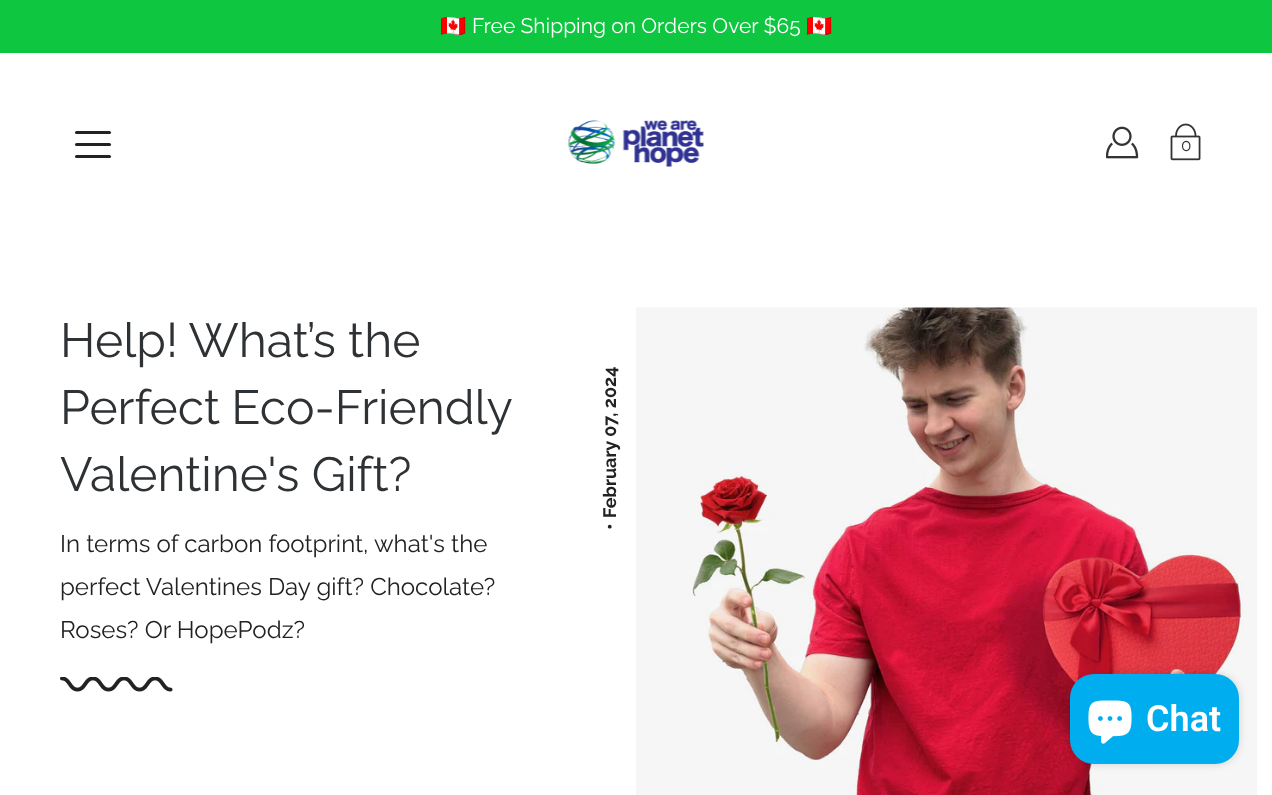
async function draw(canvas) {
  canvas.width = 1272
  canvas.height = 795
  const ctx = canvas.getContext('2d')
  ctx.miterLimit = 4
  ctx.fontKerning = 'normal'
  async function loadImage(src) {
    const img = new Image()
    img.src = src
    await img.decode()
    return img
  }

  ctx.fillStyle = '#fff'
  ctx.fillRect(0, 0, 1272, 795)
  ctx.fillStyle = '#0ec63f'
  ctx.fillRect(0, 0, 1272, 53)
  ctx.font = '21px Noto Color Emoji'
  ctx.fillStyle = '#fff'
  ctx.fillText('🇨🇦', 440, 33)
  ctx.font = '100 21px Raleway'
  ctx.fillText('Free Shipping on Orders Over $65', 472, 33)
  ctx.font = '21px Noto Color Emoji'
  ctx.fillText('🇨🇦', 806, 33)
  ctx.drawImage(await loadImage('image0.png'), 568, 120, 136, 47)
  ctx.fillStyle = '#222'
  ctx.beginPath()
  ctx.roundRect(75, 143, 36, 3, 1.5)
  ctx.fill()
  ctx.beginPath()
  ctx.roundRect(75, 131, 36, 3, 1.5)
  ctx.fill()
  ctx.beginPath()
  ctx.roundRect(75, 155, 36, 3, 1.5)
  ctx.fill()
  ctx.drawImage(await loadImage('image1.png'), 1106, 126, 33, 33)
  ctx.drawImage(await loadImage('image2.png'), 1170, 123, 31, 38)
  ctx.font = '100 17px Raleway'
  ctx.fillStyle = '#2e3234'
  ctx.fillText('0', 1181, 151)
  ctx.font = '100 48px Raleway'
  ctx.fillText('Help! What’s the', 60, 357)
  ctx.wordSpacing = '-1px'
  ctx.fillText('Perfect Eco-Friendly', 60, 424)
  ctx.wordSpacing = '0px'
  ctx.fillText('Valentine\'s Gift?', 60, 491)
  ctx.font = '100 24.1px Raleway'
  ctx.fillStyle = '#222'
  ctx.fillText('In terms of carbon footprint, what\'s the', 60, 552)
  ctx.fillText('perfect Valentines Day gift? Chocolate?', 60, 595)
  ctx.fillText('Roses? Or HopePodz?', 60, 638)
  ctx.drawImage(await loadImage('image3.png'), 60, 677, 113, 15)
  ctx.font = 'bold 18px Raleway'
  ctx.save()
  ctx.translate(616, 518)
  ctx.rotate(-90 * Math.PI / 180)
  ctx.fillText('February 07, 2024', 0, 0)
  ctx.restore()
  ctx.save()
  ctx.translate(616, 530)
  ctx.rotate(-90 * Math.PI / 180)
  ctx.fillText('•', 0, 0)
  ctx.restore()
  ctx.drawImage(await loadImage('image4.png'), 636, 307, 621, 488)
  ctx.fillStyle = '#00000026'
  ctx.filter = 'blur(4px)'
  ctx.beginPath()
  ctx.roundRect(1070, 674, 169, 90, 24)
  ctx.fill()
  ctx.filter = 'none'
  ctx.fillStyle = '#00aeef'
  ctx.beginPath()
  ctx.roundRect(1070, 674, 169, 90, 24)
  ctx.fill()
  ctx.drawImage(await loadImage('image5.png'), 1088, 700, 44, 44)
  ctx.font = '600 36px Roboto'
  ctx.fillStyle = '#fff'
  ctx.fillText('Chat', 1146, 731)
}

draw(document.querySelector('canvas'))
